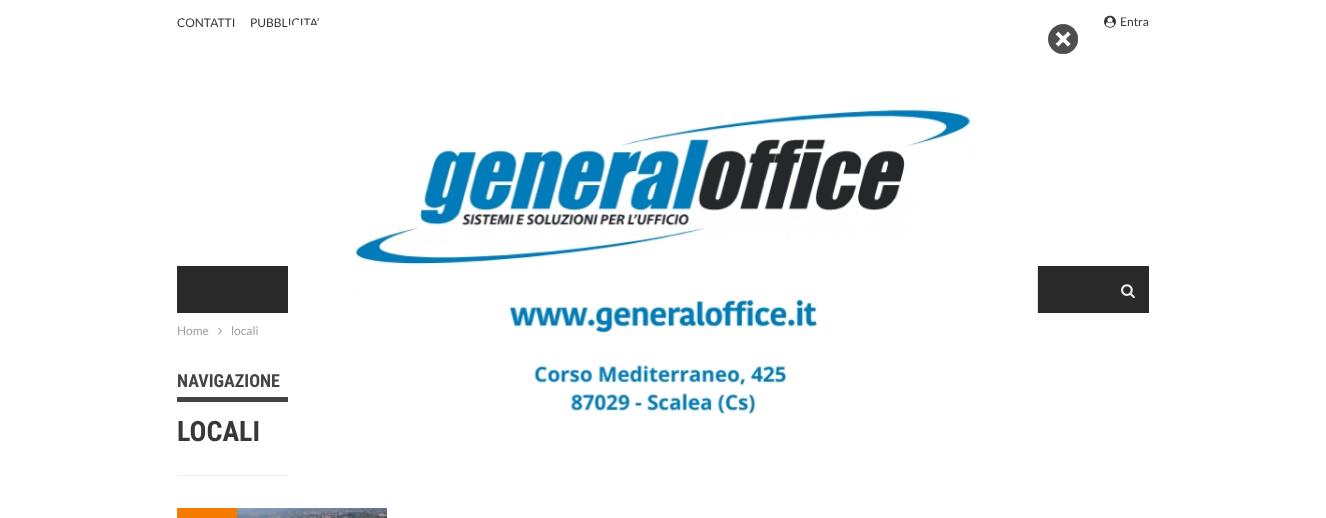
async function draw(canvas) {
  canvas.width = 1326
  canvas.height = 518
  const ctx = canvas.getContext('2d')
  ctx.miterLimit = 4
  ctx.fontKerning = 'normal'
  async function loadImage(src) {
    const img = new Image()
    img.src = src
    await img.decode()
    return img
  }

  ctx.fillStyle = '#fff'
  ctx.fillRect(0, 0, 1326, 518)
  ctx.font = '12px Lato'
  ctx.fillStyle = '#383838'
  ctx.fillText('CONTATTI', 177, 27)
  ctx.fillText('PUBBLICITA’', 250, 27)
  ctx.drawImage(await loadImage('image0.png'), 1104, 15, 12, 13)
  ctx.fillText('Entra', 1120, 26)
  ctx.fillStyle = '#292929'
  ctx.fillRect(177, 266, 972, 47)
  ctx.drawImage(await loadImage('image1.png'), 1121, 284, 14, 15)
  ctx.fillStyle = '#9e9e9e'
  ctx.fillText('Home', 177, 335)
  ctx.drawImage(await loadImage('image2.png'), 218, 327, 4, 8)
  ctx.fillText('locali', 231, 335)
  ctx.fillStyle = '#f0f0f0'
  ctx.fillRect(177, 475, 111, 1)
  ctx.font = 'bold 18px Roboto Condensed'
  ctx.fillStyle = '#444'
  ctx.fillText('NAVIGAZIONE', 177, 387)
  ctx.fillRect(177, 397, 111, 5)
  ctx.font = 'bold 28px Roboto Condensed'
  ctx.fillStyle = '#383838'
  ctx.fillText('LOCALI', 177, 441)
  ctx.fillStyle = '#f47a00'
  ctx.fillRect(177, 508, 60, 10)
  ctx.drawImage(await loadImage('image3.png'), 237, 508, 150, 10)
  ctx.drawImage(await loadImage('image4.png'), 288, 25, 750, 451)
  ctx.drawImage(await loadImage('image5.png'), 1048, 24, 30, 30)
}

draw(document.querySelector('canvas'))
